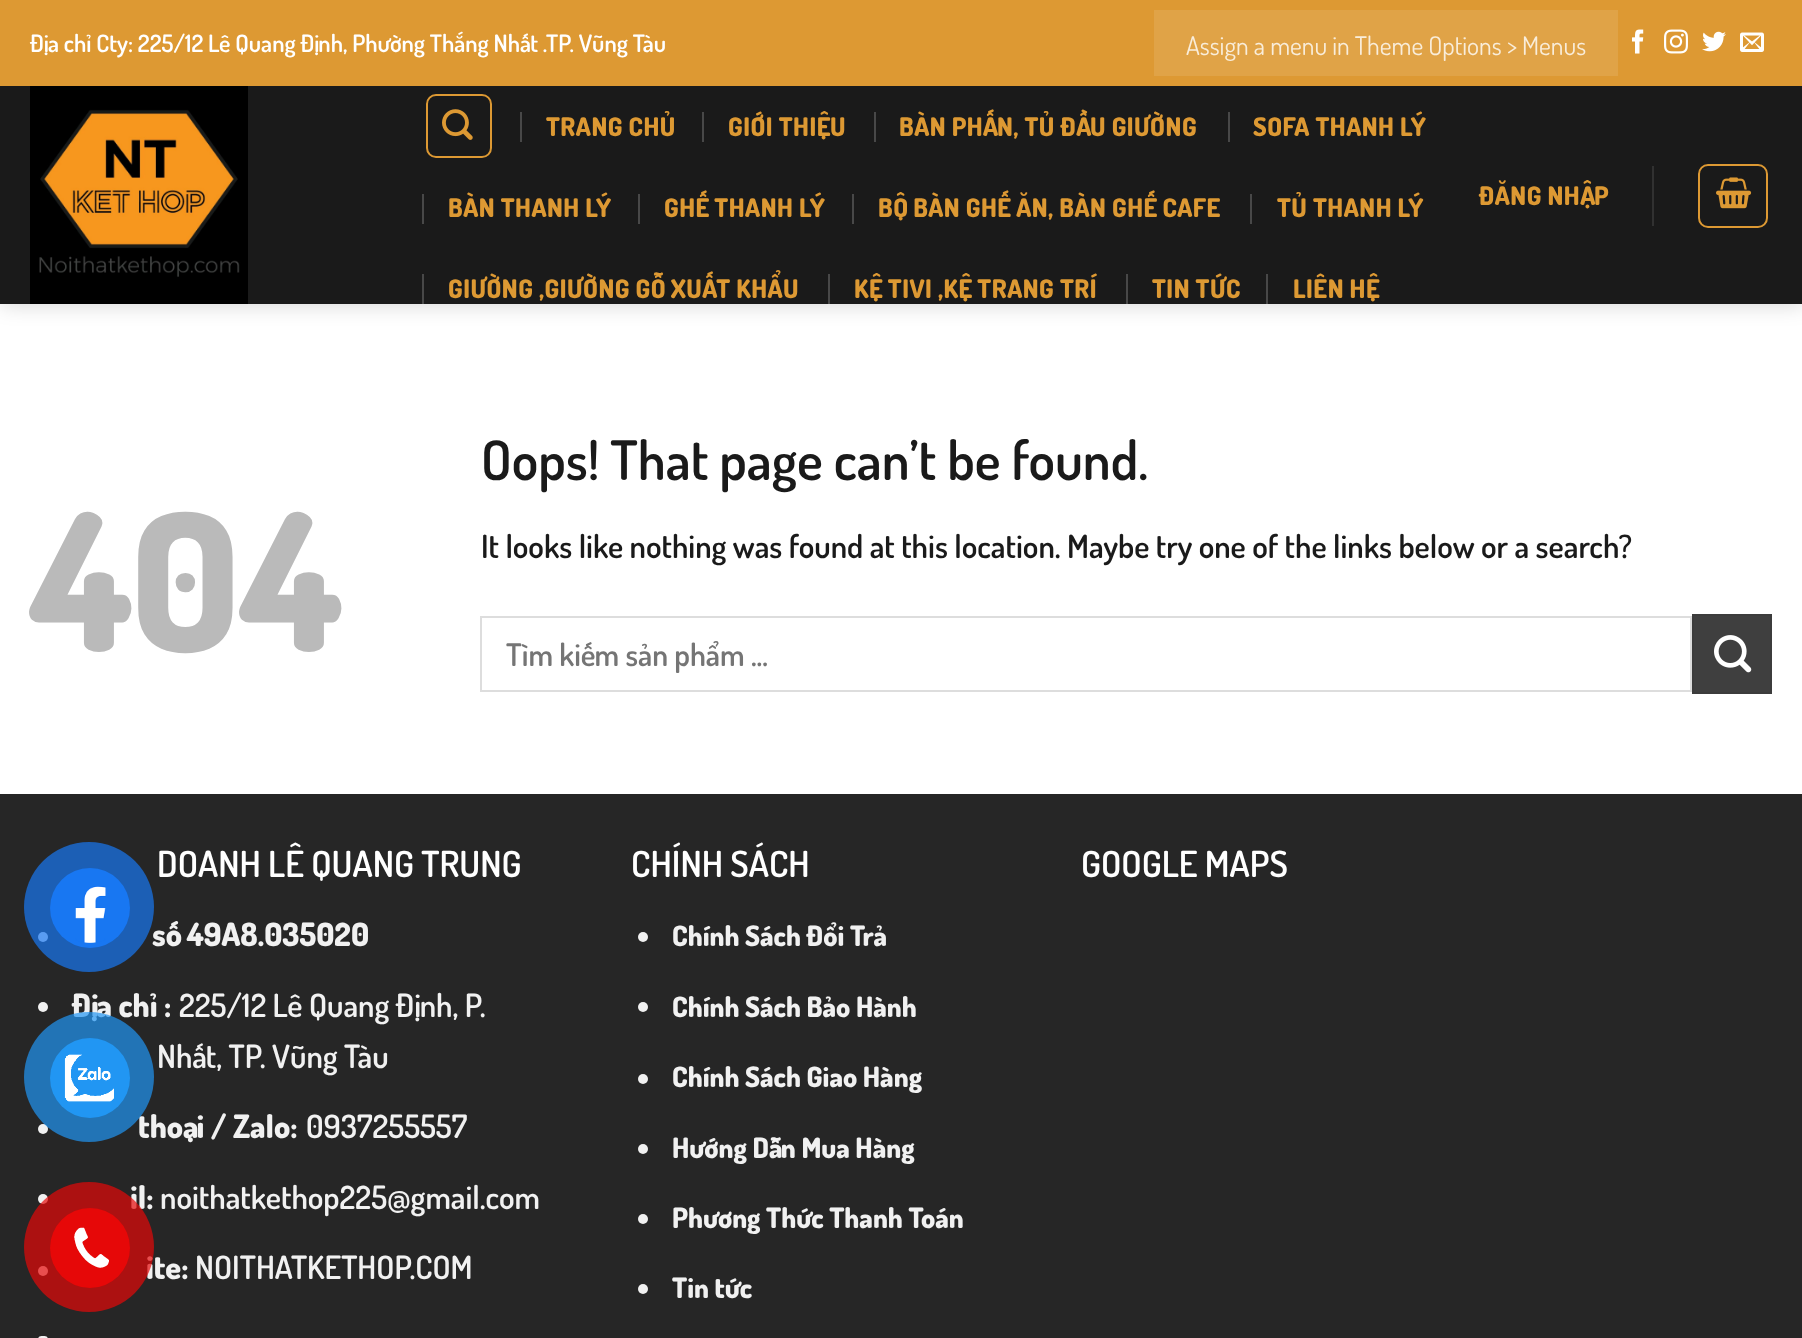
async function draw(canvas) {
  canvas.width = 1802
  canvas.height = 1338
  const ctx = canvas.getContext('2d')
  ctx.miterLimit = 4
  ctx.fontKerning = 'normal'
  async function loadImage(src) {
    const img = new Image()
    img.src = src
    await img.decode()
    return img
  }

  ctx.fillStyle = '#fff'
  ctx.fillRect(0, 0, 1802, 1338)
  ctx.fillStyle = '#00000026'
  ctx.filter = 'blur(10px)'
  ctx.beginPath()
  ctx.rect(2, 2, 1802, 304)
  ctx.fill()
  ctx.filter = 'none'
  ctx.fillStyle = '#d93'
  ctx.fillRect(0, 0, 1802, 86)
  ctx.font = '600 24px Dosis'
  ctx.fillStyle = '#fff'
  ctx.fillText('Địa chỉ Cty: 225/12 Lê Quang Định, Phường Thắng Nhất .TP. Vũng Tàu', 30, 52)
  ctx.fillStyle = '#e0a347'
  ctx.fillRect(1154, 10, 464, 66)
  ctx.font = '25.6px Dosis'
  ctx.fillStyle = '#f9edda'
  ctx.fillText('Assign a menu in Theme Options > Menus', 1186, 55)
  ctx.drawImage(await loadImage('image0.png'), 1632, 29, 12, 25)
  ctx.drawImage(await loadImage('image1.png'), 1664, 29, 24, 25)
  ctx.drawImage(await loadImage('image2.png'), 1702, 31, 24, 21)
  ctx.drawImage(await loadImage('image3.png'), 1740, 32, 24, 20)
  ctx.fillStyle = '#1a1a1a'
  ctx.fillRect(0, 86, 1802, 218)
  ctx.drawImage(await loadImage('image4.png'), 30, 86, 218, 218)
  ctx.beginPath()
  ctx.roundRect(427, 95, 64, 62, 9)
  ctx.strokeStyle = '#d93'
  ctx.lineWidth = 2
  ctx.stroke()
  ctx.drawImage(await loadImage('image5.png'), 442, 109, 31, 31)
  ctx.fillStyle = '#484848'
  ctx.fillRect(520, 112, 2, 30)
  ctx.letterSpacing = '0.5px'
  ctx.font = '800 25.6px Dosis'
  ctx.fillStyle = '#d93'
  ctx.fillText('TRANG CHỦ', 546, 136)
  ctx.fillStyle = '#484848'
  ctx.fillRect(702, 112, 2, 30)
  ctx.fillStyle = '#d93'
  ctx.fillText('GIỚI THIỆU', 728, 136)
  ctx.fillStyle = '#484848'
  ctx.fillRect(874, 112, 2, 30)
  ctx.fillStyle = '#d93'
  ctx.fillText('BÀN PHẤN, TỦ ĐẦU GIƯỜNG', 899, 136)
  ctx.fillStyle = '#484848'
  ctx.fillRect(1228, 112, 2, 30)
  ctx.fillStyle = '#d93'
  ctx.fillText('SOFA THANH LÝ', 1253, 136)
  ctx.fillStyle = '#484848'
  ctx.fillRect(422, 194, 2, 30)
  ctx.fillStyle = '#d93'
  ctx.fillText('BÀN THANH LÝ', 448, 217)
  ctx.fillStyle = '#484848'
  ctx.fillRect(638, 194, 2, 30)
  ctx.fillStyle = '#d93'
  ctx.fillText('GHẾ THANH LÝ', 664, 217)
  ctx.fillStyle = '#484848'
  ctx.fillRect(852, 194, 2, 30)
  ctx.fillStyle = '#d93'
  ctx.fillText('BỘ BÀN GHẾ ĂN, BÀN GHẾ CAFE', 878, 217)
  ctx.fillStyle = '#484848'
  ctx.fillRect(1250, 194, 2, 30)
  ctx.fillStyle = '#d93'
  ctx.fillText('TỦ THANH LÝ', 1277, 217)
  ctx.fillStyle = '#484848'
  ctx.fillRect(422, 274, 2, 30)
  ctx.fillStyle = '#d93'
  ctx.fillText('GIƯỜNG ,GIƯỜNG GỖ XUẤT KHẨU', 448, 298)
  ctx.fillStyle = '#484848'
  ctx.fillRect(828, 274, 2, 30)
  ctx.fillStyle = '#d93'
  ctx.fillText('KỆ TIVI ,KỆ TRANG TRÍ', 854, 298)
  ctx.fillStyle = '#484848'
  ctx.fillRect(1126, 274, 2, 30)
  ctx.fillStyle = '#d93'
  ctx.fillText('TIN TỨC', 1152, 298)
  ctx.fillStyle = '#484848'
  ctx.fillRect(1266, 274, 2, 30)
  ctx.fillStyle = '#d93'
  ctx.fillText('LIÊN HỆ', 1293, 298)
  ctx.fillText('ĐĂNG NHẬP', 1479, 205)
  ctx.fillStyle = '#313131'
  ctx.fillRect(1652, 166, 2, 60)
  ctx.beginPath()
  ctx.roundRect(1699, 165, 68, 62, 9)
  ctx.stroke()
  ctx.drawImage(await loadImage('image6.png'), 1716, 177, 36, 32)
  ctx.letterSpacing = '0px'
  ctx.font = '800 192px Dosis'
  ctx.fillStyle = '#bababa'
  ctx.fillText('404', 30, 652)
  ctx.font = '600 54.4px Dosis'
  ctx.fillStyle = '#1a1a1a'
  ctx.fillText('Oops! That page can’t be found.', 481, 480)
  ctx.font = '600 32px Dosis'
  ctx.fillText('It looks like nothing was found at this location. Maybe try one of the links below or a search?', 481, 558)
  ctx.strokeStyle = '#ddd'
  ctx.strokeRect(481, 617, 1210, 74)
  ctx.font = '600 31px Dosis'
  ctx.fillStyle = '#757575'
  ctx.fillText('Tìm kiếm sản phẩm ...', 506, 666)
  ctx.fillStyle = '#3f3f3f'
  ctx.beginPath()
  ctx.rect(1693, 615, 78, 78)
  ctx.fill()
  ctx.strokeStyle = '#3c3c3c'
  ctx.stroke()
  ctx.drawImage(await loadImage('image7.png'), 1714, 635, 38, 38)
  ctx.fillStyle = '#262626'
  ctx.fillRect(0, 794, 1802, 544)
  ctx.font = '600 36px Dosis'
  ctx.fillStyle = '#fff'
  ctx.fillText('DOANH LÊ QUANG TRUNG', 157, 877)
  ctx.fillStyle = '#f1f1f1'
  ctx.beginPath()
  ctx.arc(43, 937, 5, 0, 2 * Math.PI)
  ctx.fill()
  ctx.font = '800 32px Dosis'
  ctx.fillText('số 49A8.035020', 152, 946)
  ctx.beginPath()
  ctx.arc(43, 1007, 5, 0, 2 * Math.PI)
  ctx.fill()
  ctx.fillText('Địa chỉ :', 72, 1017)
  ctx.font = '600 32px Dosis'
  ctx.fillText('225/12 Lê Quang Định, P.', 179, 1017)
  ctx.fillText('Nhất, TP. Vũng Tàu', 157, 1068)
  ctx.beginPath()
  ctx.arc(43, 1129, 5, 0, 2 * Math.PI)
  ctx.fill()
  ctx.font = '800 32px Dosis'
  ctx.fillText('thoại / Zalo:', 138, 1138)
  ctx.font = '600 32px Dosis'
  ctx.fillText('0937255557', 306, 1138)
  ctx.beginPath()
  ctx.arc(43, 1199, 5, 0, 2 * Math.PI)
  ctx.fill()
  ctx.font = '800 32px Dosis'
  ctx.fillText('il:', 130, 1209)
  ctx.font = '600 32px Dosis'
  ctx.fillText('noithatkethop225@gmail.com', 160, 1209)
  ctx.beginPath()
  ctx.arc(43, 1271, 5, 0, 2 * Math.PI)
  ctx.fill()
  ctx.font = '800 32px Dosis'
  ctx.fillText('ite:', 146, 1279)
  ctx.font = '600 32px Dosis'
  ctx.fillText('NOITHATKETHOP.COM', 195, 1279)
  ctx.beginPath()
  ctx.roundRect(38, 1336, 10, 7, 5)
  ctx.fill()
  ctx.font = '600 36px Dosis'
  ctx.fillStyle = '#fff'
  ctx.fillText('CHÍNH SÁCH', 631, 877)
  ctx.fillStyle = '#f1f1f1'
  ctx.beginPath()
  ctx.arc(643, 937, 5, 0, 2 * Math.PI)
  ctx.fill()
  ctx.font = '800 28px Dosis'
  ctx.fillText('Chính Sách Đổi Trả', 672, 946)
  ctx.beginPath()
  ctx.arc(643, 1007, 5, 0, 2 * Math.PI)
  ctx.fill()
  ctx.fillText('Chính Sách Bảo Hành', 672, 1017)
  ctx.beginPath()
  ctx.arc(643, 1079, 5, 0, 2 * Math.PI)
  ctx.fill()
  ctx.fillText('Chính Sách Giao Hàng', 672, 1087)
  ctx.beginPath()
  ctx.arc(643, 1149, 5, 0, 2 * Math.PI)
  ctx.fill()
  ctx.fillText('Hướng Dẫn Mua Hàng', 672, 1158)
  ctx.beginPath()
  ctx.arc(643, 1219, 5, 0, 2 * Math.PI)
  ctx.fill()
  ctx.fillText('Phương Thức Thanh Toán', 672, 1228)
  ctx.beginPath()
  ctx.arc(643, 1289, 5, 0, 2 * Math.PI)
  ctx.fill()
  ctx.fillText('Tin tức', 672, 1298)
  ctx.font = '600 36px Dosis'
  ctx.fillStyle = '#fff'
  ctx.fillText('GOOGLE MAPS', 1081, 877)
  ctx.fillStyle = '#1877f2b3'
  ctx.beginPath()
  ctx.arc(89, 907, 65, 0, 2 * Math.PI)
  ctx.fill()
  ctx.fillStyle = '#1877f2'
  ctx.beginPath()
  ctx.arc(90, 908, 40, 0, 2 * Math.PI)
  ctx.fill()
  ctx.drawImage(await loadImage('image8.png'), 75, 886, 31, 57)
  ctx.fillStyle = '#2196f3b3'
  ctx.beginPath()
  ctx.arc(89, 1077, 65, 0, 2 * Math.PI)
  ctx.fill()
  ctx.fillStyle = '#2196f3'
  ctx.beginPath()
  ctx.arc(90, 1078, 40, 0, 2 * Math.PI)
  ctx.fill()
  ctx.drawImage(await loadImage('image9.png'), 64, 1054, 50, 48)
  ctx.fillStyle = '#e60808b3'
  ctx.beginPath()
  ctx.arc(89, 1247, 65, 0, 2 * Math.PI)
  ctx.fill()
  ctx.fillStyle = '#e60808'
  ctx.beginPath()
  ctx.arc(90, 1248, 40, 0, 2 * Math.PI)
  ctx.fill()
  ctx.drawImage(await loadImage('image10.png'), 74, 1227, 35, 41)
}

draw(document.querySelector('canvas'))
